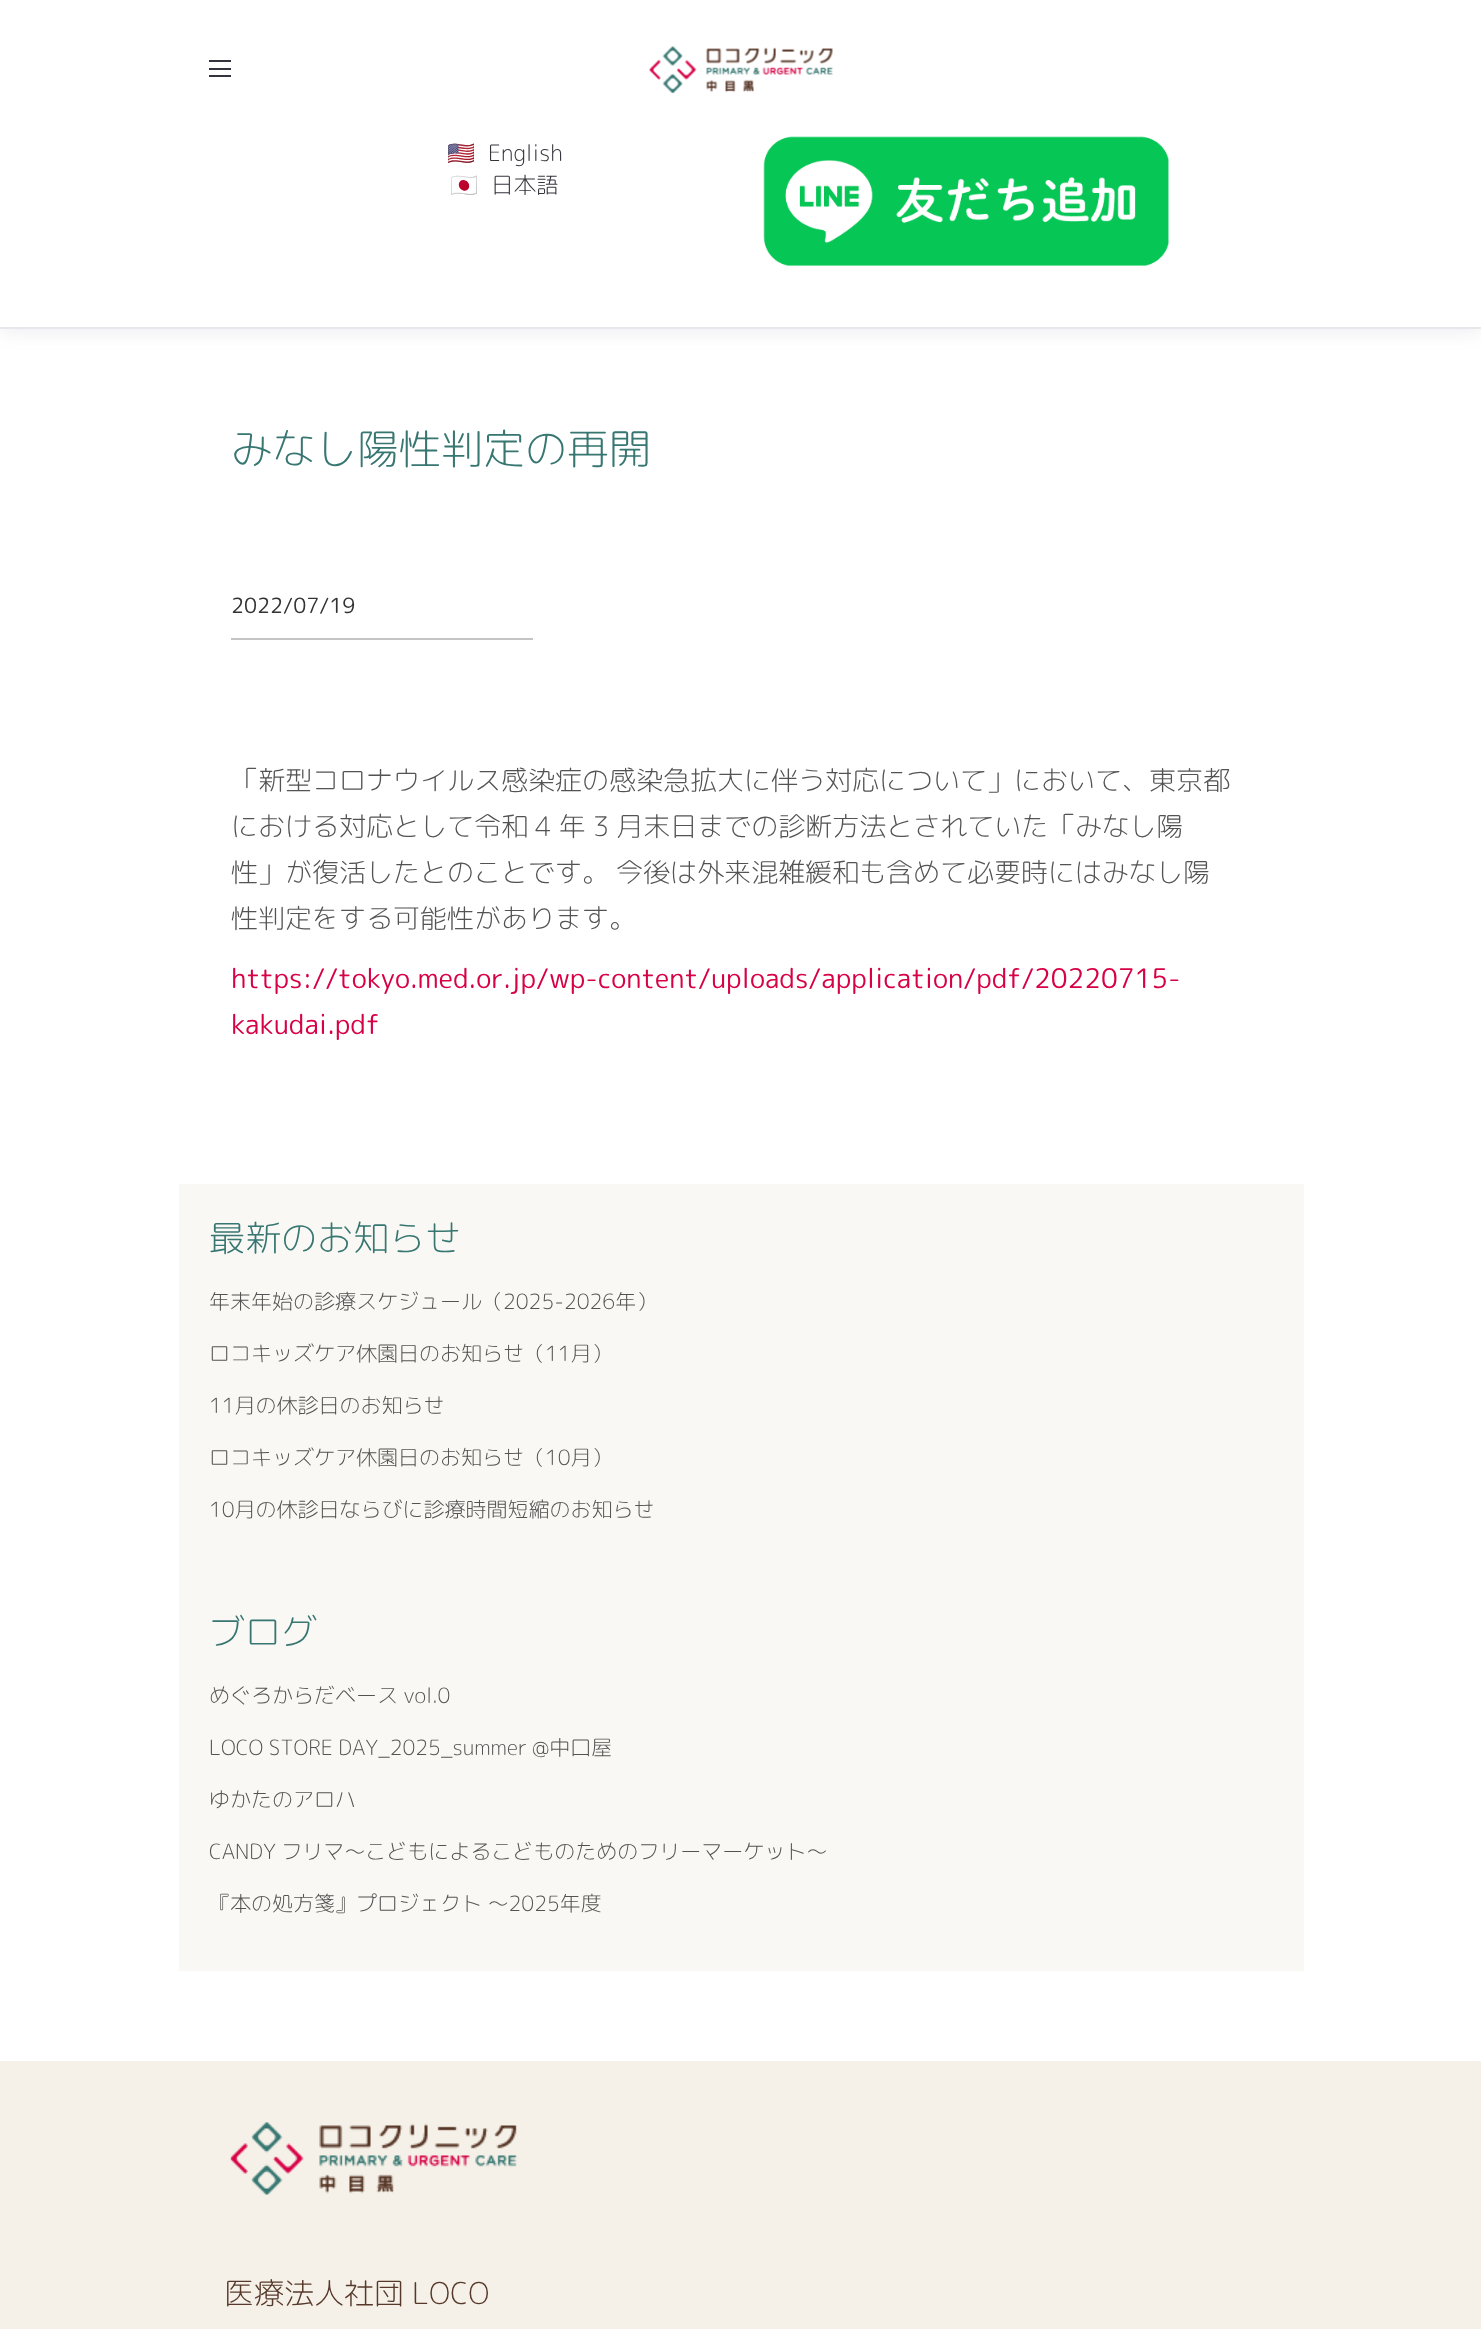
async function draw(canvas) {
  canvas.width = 1481
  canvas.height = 2329
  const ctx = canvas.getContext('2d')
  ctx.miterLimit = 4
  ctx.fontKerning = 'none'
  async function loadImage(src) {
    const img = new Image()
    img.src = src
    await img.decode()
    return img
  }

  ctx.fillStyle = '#fff'
  ctx.fillRect(0, 0, 1481, 2329)
  ctx.fillStyle = '#00003217'
  ctx.filter = 'blur(11px)'
  ctx.beginPath()
  ctx.rect(0, 0, 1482, 329)
  ctx.fill()
  ctx.filter = 'none'
  ctx.fillStyle = '#fff'
  ctx.fillRect(0, 0, 1481, 327)
  ctx.fillStyle = '#e8e8ec'
  ctx.fillRect(0, 327, 1481, 2)
  ctx.fillStyle = '#34343c'
  ctx.fillRect(209, 75, 22, 2)
  ctx.fillRect(209, 60, 22, 2)
  ctx.fillRect(209, 68, 22, 2)
  ctx.drawImage(await loadImage('image0.png'), 649, 46, 184, 48)
  ctx.font = '22.5px Noto Color Emoji'
  ctx.fillText('🇺🇸', 447, 161)
  ctx.font = '300 22.5px "Rounded Mplus 1c"'
  ctx.fillText('English', 488, 161)
  ctx.font = '22.5px Noto Color Emoji'
  ctx.fillText('🇯🇵', 450, 193)
  ctx.font = '300 22.5px "Rounded Mplus 1c"'
  ctx.fillText('日本語', 491, 193)
  ctx.drawImage(await loadImage('image1.png'), 763, 136, 406, 130)
  ctx.font = '300 42px "Rounded Mplus 1c"'
  ctx.fillStyle = '#377671'
  ctx.fillText('みなし陽性判定の再開', 231, 464)
  ctx.font = '21px "Rounded Mplus 1c"'
  ctx.fillStyle = '#333'
  ctx.fillText('2022/07/19', 231, 613)
  ctx.fillStyle = '#c4c4c4'
  ctx.fillRect(231, 638, 302, 2)
  ctx.font = '300 27px "Rounded Mplus 1c"'
  ctx.fillStyle = '#535353'
  ctx.fillText('「新型コロナウイルス感染症の感染急拡大に伴う対応について」において、東京都', 231, 790)
  ctx.fillText('における対応として令和 4 年 3 月末日までの診断方法とされていた「みなし陽', 231, 836)
  ctx.fillText('性」が復活したとのことです。 今後は外来混雑緩和も含めて必要時にはみなし陽', 231, 882)
  ctx.fillText('性判定をする可能性があります。', 231, 928)
  ctx.font = '27px "Rounded Mplus 1c"'
  ctx.fillStyle = '#d70146'
  ctx.fillText('https://tokyo.med.or.jp/wp-content/uploads/application/pdf/20220715-', 231, 988)
  ctx.fillText('kakudai.pdf', 231, 1034)
  ctx.fillStyle = '#faf8f4'
  ctx.fillRect(179, 1184, 1125, 787)
  ctx.font = '300 36px "Rounded Mplus 1c"'
  ctx.fillStyle = '#377671'
  ctx.fillText('最新のお知らせ', 209, 1251)
  ctx.font = '300 21px "Rounded Mplus 1c"'
  ctx.fillStyle = '#535353'
  ctx.fillText('年末年始の診療スケジュール（2025-2026年）', 209, 1309)
  ctx.fillText('ロコキッズケア休園日のお知らせ（11月）', 209, 1361)
  ctx.fillText('11月の休診日のお知らせ', 209, 1413)
  ctx.fillText('ロコキッズケア休園日のお知らせ（10月）', 209, 1465)
  ctx.fillText('10月の休診日ならびに診療時間短縮のお知らせ', 209, 1517)
  ctx.font = '300 36px "Rounded Mplus 1c"'
  ctx.fillStyle = '#377671'
  ctx.fillText('ブログ', 209, 1645)
  ctx.font = '300 21px "Rounded Mplus 1c"'
  ctx.fillStyle = '#535353'
  ctx.fillText('めぐろからだベース vol.0', 209, 1703)
  ctx.fillText('LOCO STORE DAY_2025_summer', 209, 1755)
  ctx.fillText('@中口屋', 532, 1755)
  ctx.fillText('ゆかたのアロハ', 209, 1807)
  ctx.fillText('CANDY フリマ〜こどもによるこどものためのフリーマーケット〜', 209, 1859)
  ctx.fillText('『本の処方箋』プロジェクト 〜2025年度', 209, 1911)
  ctx.fillStyle = '#f5f1e8'
  ctx.fillRect(0, 2061, 1481, 268)
  ctx.drawImage(await loadImage('image2.png'), 229, 2122, 288, 73)
  ctx.font = '300 30px "Rounded Mplus 1c"'
  ctx.fillStyle = '#57392b'
  ctx.fillText('医療法人社団 LOCO', 224, 2304)
}

draw(document.querySelector('canvas'))
